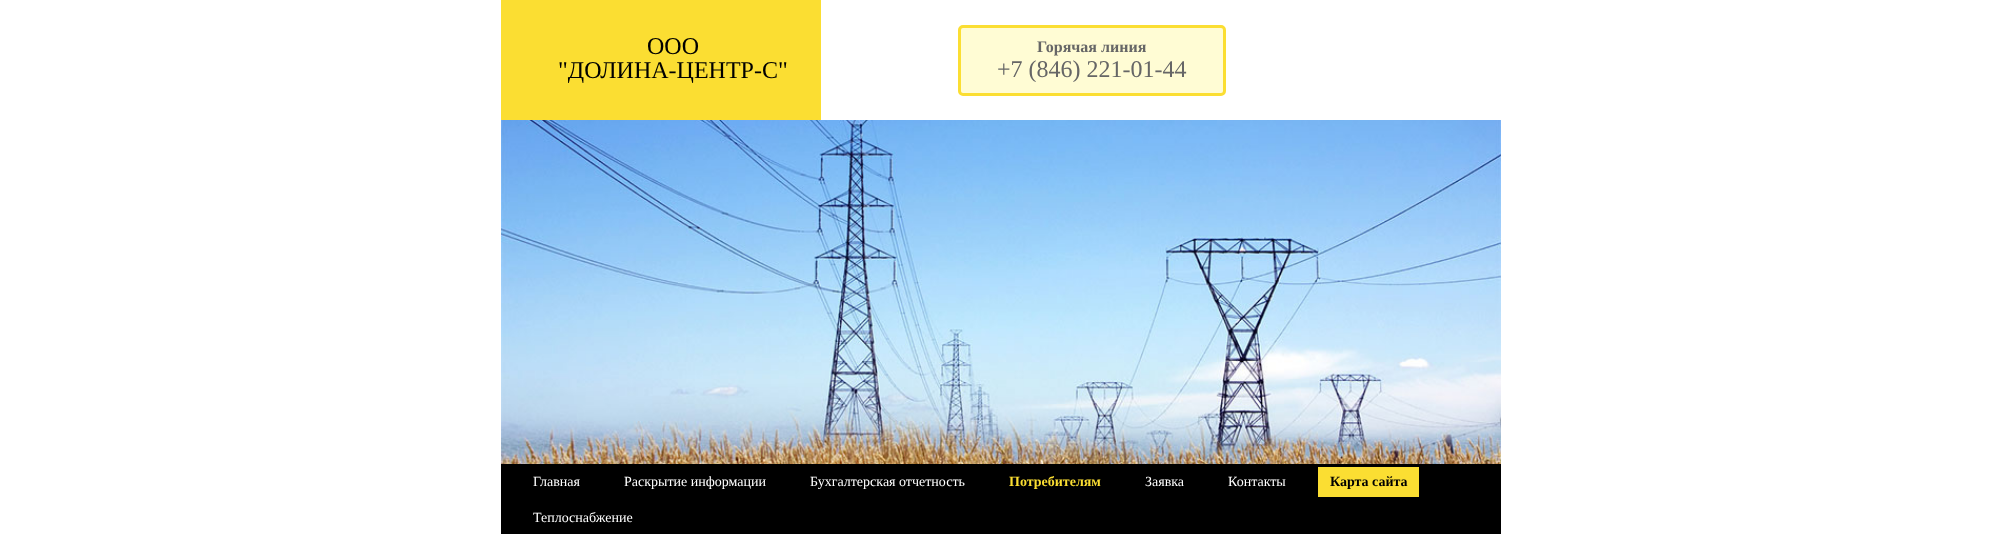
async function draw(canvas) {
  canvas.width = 2002
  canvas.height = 534
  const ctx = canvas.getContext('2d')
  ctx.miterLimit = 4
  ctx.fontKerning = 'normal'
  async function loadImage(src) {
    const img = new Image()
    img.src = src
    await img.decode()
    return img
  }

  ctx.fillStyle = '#fff'
  ctx.fillRect(0, 0, 2002, 534)
  ctx.fillStyle = '#fbde32'
  ctx.fillRect(501, 0, 320, 120)
  ctx.font = '24px Liberation Serif'
  ctx.fillStyle = '#000'
  ctx.fillText('ООО', 647, 54)
  ctx.fillText('"ДОЛИНА-ЦЕНТР-С"', 558, 78)
  ctx.fillStyle = '#fffcd4'
  ctx.beginPath()
  ctx.roundRect(959.5, 26.5, 265, 68, 3.5)
  ctx.fill()
  ctx.strokeStyle = '#fbde32'
  ctx.lineWidth = 3
  ctx.stroke()
  ctx.font = 'bold 16px Liberation Serif'
  ctx.fillStyle = '#666'
  ctx.fillText('Горячая линия', 1037, 52)
  ctx.font = '24px Liberation Serif'
  ctx.fillText('+7 (846) 221-01-44', 997, 77)
  ctx.drawImage(await loadImage('image0.png'), 501, 120, 1000, 344)
  ctx.fillStyle = '#000'
  ctx.fillRect(501, 464, 1000, 70)
  ctx.font = '14px Liberation Serif'
  ctx.fillStyle = '#fff'
  ctx.fillText('Главная', 533, 486)
  ctx.fillText('Раскрытие информации', 624, 486)
  ctx.fillText('Бухгалтерская отчетность', 810, 486)
  ctx.font = 'bold 14px Liberation Serif'
  ctx.fillStyle = '#fbde32'
  ctx.fillText('Потребителям', 1009, 486)
  ctx.font = '14px Liberation Serif'
  ctx.fillStyle = '#fff'
  ctx.fillText('Заявка', 1145, 486)
  ctx.fillText('Контакты', 1228, 486)
  ctx.fillStyle = '#fbde32'
  ctx.fillRect(1318, 467, 101, 30)
  ctx.font = 'bold 14px Liberation Serif'
  ctx.fillStyle = '#000'
  ctx.fillText('Карта сайта', 1330, 486)
  ctx.font = '14px Liberation Serif'
  ctx.fillStyle = '#fff'
  ctx.fillText('Теплоснабжение', 533, 522)
}

draw(document.querySelector('canvas'))
